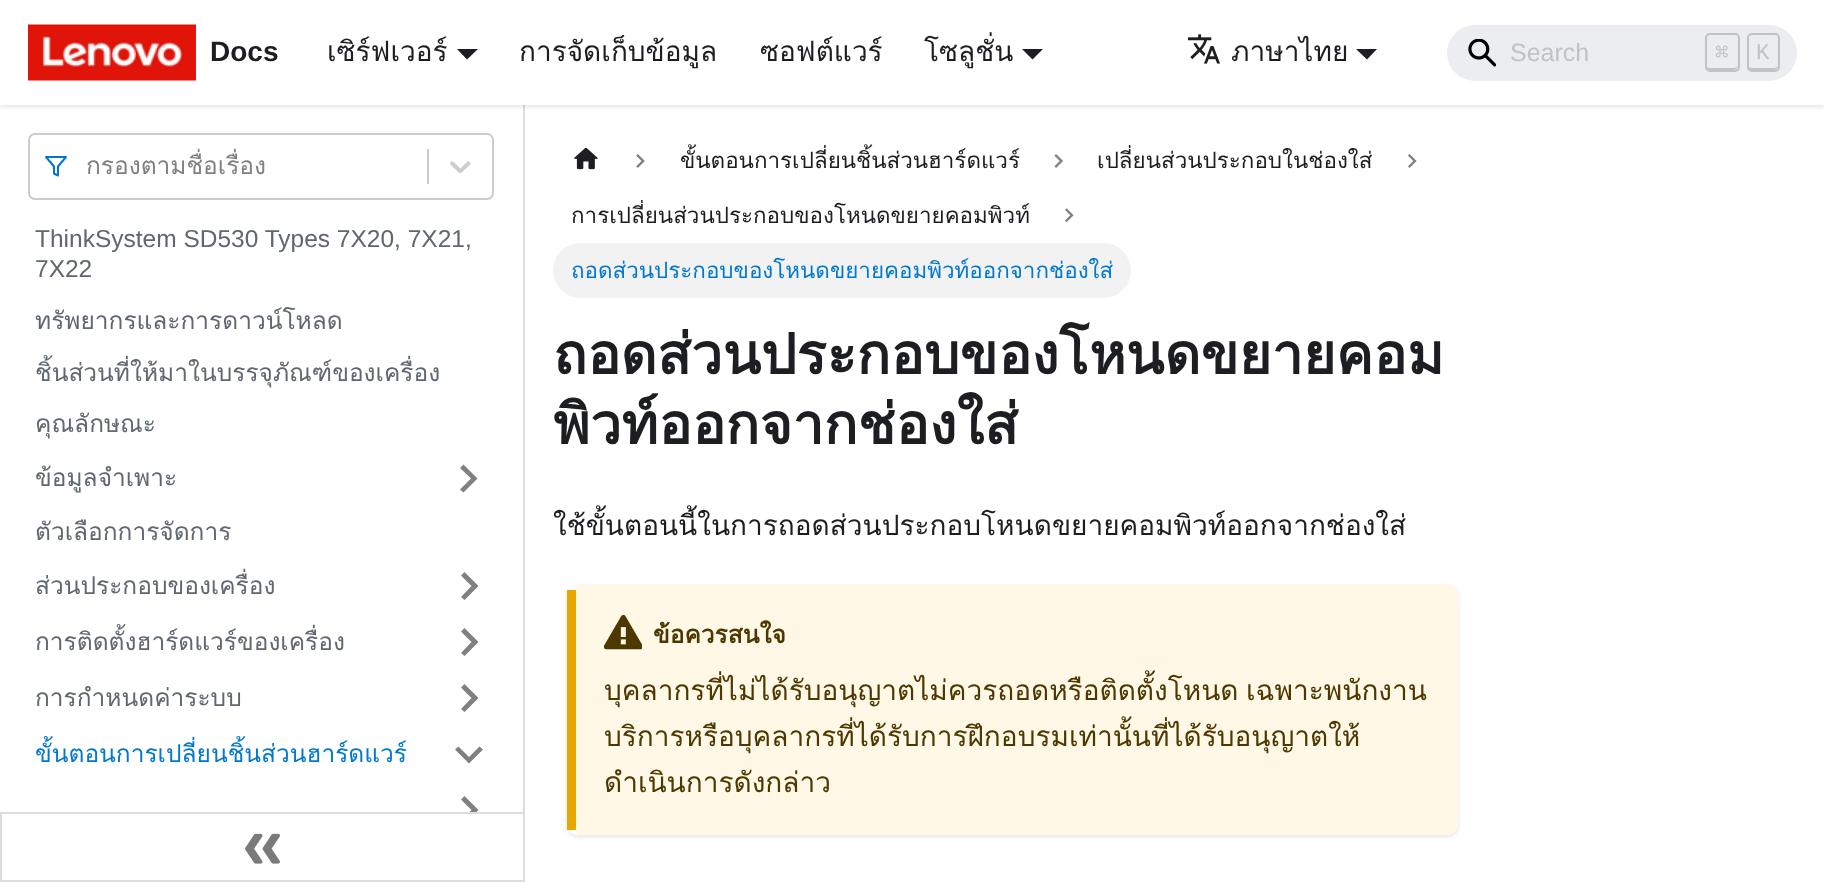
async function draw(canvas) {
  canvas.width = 1824
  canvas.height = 882
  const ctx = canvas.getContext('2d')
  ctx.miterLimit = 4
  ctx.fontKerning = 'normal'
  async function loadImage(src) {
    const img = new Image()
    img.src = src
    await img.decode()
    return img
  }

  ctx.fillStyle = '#fff'
  ctx.fillRect(0, 0, 1824, 882)
  ctx.fillStyle = '#dadde1'
  ctx.fillRect(523, 105, 2, 707)
  ctx.fillStyle = '#0000001a'
  ctx.filter = 'blur(2px)'
  ctx.beginPath()
  ctx.rect(0, 2, 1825, 105)
  ctx.fill()
  ctx.filter = 'none'
  ctx.fillStyle = '#fff'
  ctx.fillRect(0, 0, 1824, 105)
  ctx.drawImage(await loadImage('image0.png'), 28, 24, 168, 57)
  ctx.font = 'bold 28px Liberation Sans'
  ctx.fillStyle = '#1c1e21'
  ctx.fillText('Docs', 210, 61)
  ctx.font = '28px Loma'
  ctx.fillText('เซิร์ฟเวอร์', 327, 61)
  ctx.beginPath()
  ctx.moveTo(457, 49)
  ctx.lineTo(478, 49)
  ctx.lineTo(467, 59.5)
  ctx.closePath()
  ctx.fill()
  ctx.fillText('การจัดเก็บข้อมูล', 519, 61)
  ctx.fillText('ซอฟต์แวร์', 760, 61)
  ctx.fillText('โซลูชั่น', 924, 61)
  ctx.beginPath()
  ctx.moveTo(1022, 49)
  ctx.lineTo(1043, 49)
  ctx.lineTo(1032.5, 59.5)
  ctx.closePath()
  ctx.fill()
  ctx.drawImage(await loadImage('image1.png'), 1187, 34, 33, 30)
  ctx.fillText('ภาษาไทย', 1231, 61)
  ctx.beginPath()
  ctx.moveTo(1356, 49)
  ctx.lineTo(1377, 49)
  ctx.lineTo(1367, 59.5)
  ctx.closePath()
  ctx.fill()
  ctx.fillStyle = '#ebedf0'
  ctx.beginPath()
  ctx.roundRect(1447, 25, 350, 56, 28)
  ctx.fill()
  ctx.drawImage(await loadImage('image2.png'), 1468, 39, 28, 28)
  ctx.font = '25px Liberation Sans'
  ctx.fillStyle = '#bec3c9'
  ctx.fillText('Search', 1510, 61)
  ctx.beginPath()
  ctx.moveTo(1706, 64)
  ctx.bezierCurveTo(1706, 70, 1708.5, 70, 1714, 70)
  ctx.lineTo(1730, 70)
  ctx.bezierCurveTo(1735.5, 70, 1738, 70, 1738, 64)
  ctx.bezierCurveTo(1738, 67, 1736, 68, 1734, 68)
  ctx.lineTo(1710, 68)
  ctx.bezierCurveTo(1708, 68, 1706, 67, 1706, 64)
  ctx.closePath()
  ctx.fill()
  ctx.beginPath()
  ctx.roundRect(1706, 34, 33, 37, 4)
  ctx.strokeStyle = '#bec3c9'
  ctx.lineWidth = 2
  ctx.stroke()
  ctx.font = '22.4px DejaVu Sans Mono'
  ctx.fillText('⌘', 1715, 60)
  ctx.beginPath()
  ctx.moveTo(1748, 64)
  ctx.bezierCurveTo(1748, 70, 1750, 70, 1755.5, 70)
  ctx.lineTo(1770.5, 70)
  ctx.bezierCurveTo(1776, 70, 1778, 70, 1778, 64)
  ctx.bezierCurveTo(1778, 67, 1776, 68, 1774, 68)
  ctx.lineTo(1752, 68)
  ctx.bezierCurveTo(1750, 68, 1748, 67, 1748, 64)
  ctx.closePath()
  ctx.fill()
  ctx.beginPath()
  ctx.roundRect(1748, 34, 31, 37, 4)
  ctx.stroke()
  ctx.font = '22.4px Liberation Mono'
  ctx.fillText('K', 1756, 59)
  ctx.beginPath()
  ctx.roundRect(29, 134, 464, 65, 6)
  ctx.strokeStyle = '#ccc'
  ctx.stroke()
  ctx.beginPath()
  ctx.moveTo(66, 157)
  ctx.lineTo(46, 157)
  ctx.lineTo(54, 166.5)
  ctx.lineTo(54, 173.5)
  ctx.lineTo(58, 175.5)
  ctx.lineTo(58, 166.5)
  ctx.closePath()
  ctx.strokeStyle = '#0078d0'
  ctx.lineCap = 'round'
  ctx.lineJoin = 'round'
  ctx.stroke()
  ctx.font = '24.5px Loma'
  ctx.fillStyle = '#808080'
  ctx.fillText('กรองตามชื่อเรื่อง', 86, 174)
  ctx.fillStyle = '#ccc'
  ctx.fillRect(427, 149, 2, 35)
  ctx.drawImage(await loadImage('image3.png'), 450, 161, 21, 13)
  ctx.font = '24.5px Liberation Sans'
  ctx.fillStyle = '#606770'
  ctx.fillText('ThinkSystem SD530 Types 7X20, 7X21,', 35, 247)
  ctx.fillText('7X22', 35, 277)
  ctx.font = '24.5px Loma'
  ctx.fillText('ทรัพยากรและการดาวน์โหลด', 35, 329)
  ctx.fillText('ชิ้นส่วนที่ให้มาในบรรจุภัณฑ์ของเครื่อง', 35, 381)
  ctx.fillText('คุณลักษณะ', 35, 432)
  ctx.fillText('ข้อมูลจำเพาะ', 35, 486)
  ctx.fillStyle = '#808080'
  ctx.beginPath()
  ctx.moveTo(460, 468)
  ctx.lineTo(471, 478.5)
  ctx.lineTo(460, 489.5)
  ctx.lineTo(463.5, 492.5)
  ctx.lineTo(477.5, 478.5)
  ctx.lineTo(463.5, 464.5)
  ctx.closePath()
  ctx.fill()
  ctx.fillStyle = '#606770'
  ctx.fillText('ตัวเลือกการจัดการ', 35, 540)
  ctx.fillText('ส่วนประกอบของเครื่อง', 35, 594)
  ctx.fillStyle = '#808080'
  ctx.beginPath()
  ctx.moveTo(461, 575.5)
  ctx.lineTo(471.5, 586)
  ctx.lineTo(461, 597)
  ctx.lineTo(464.5, 600)
  ctx.lineTo(478.5, 586)
  ctx.lineTo(464.5, 572)
  ctx.closePath()
  ctx.fill()
  ctx.fillStyle = '#606770'
  ctx.fillText('การติดตั้งฮาร์ดแวร์ของเครื่อง', 35, 650)
  ctx.fillStyle = '#808080'
  ctx.beginPath()
  ctx.moveTo(461, 631.5)
  ctx.lineTo(471.5, 642)
  ctx.lineTo(461, 653)
  ctx.lineTo(464.5, 656)
  ctx.lineTo(478.5, 642)
  ctx.lineTo(464.5, 628)
  ctx.closePath()
  ctx.fill()
  ctx.fillStyle = '#606770'
  ctx.fillText('การกำหนดค่าระบบ', 35, 706)
  ctx.fillStyle = '#808080'
  ctx.beginPath()
  ctx.moveTo(461, 687.5)
  ctx.lineTo(471.5, 698)
  ctx.lineTo(461, 709)
  ctx.lineTo(464.5, 712)
  ctx.lineTo(478.5, 698)
  ctx.lineTo(464.5, 684)
  ctx.closePath()
  ctx.fill()
  ctx.fillStyle = '#0078d0'
  ctx.fillText('ขั้นตอนการเปลี่ยนชิ้นส่วนฮาร์ดแวร์', 35, 762)
  ctx.fillStyle = '#808080'
  ctx.beginPath()
  ctx.moveTo(479.5, 746.5)
  ctx.lineTo(469, 757)
  ctx.lineTo(458.5, 746.5)
  ctx.lineTo(455, 749.5)
  ctx.lineTo(469, 763.5)
  ctx.lineTo(483, 749.5)
  ctx.closePath()
  ctx.fill()
  ctx.save()
  ctx.beginPath()
  ctx.rect(0, 105, 525, 707)
  ctx.clip()
  ctx.beginPath()
  ctx.moveTo(461, 799.5)
  ctx.lineTo(471.5, 810)
  ctx.lineTo(461, 821)
  ctx.lineTo(464.5, 824)
  ctx.lineTo(478.5, 810)
  ctx.lineTo(464.5, 796)
  ctx.closePath()
  ctx.fill()
  ctx.restore()
  ctx.strokeStyle = '#dadde1'
  ctx.lineJoin = 'miter'
  ctx.strokeRect(1, 813, 523, 68)
  ctx.drawImage(await loadImage('image4.png'), 245, 833, 35, 31)
  ctx.drawImage(await loadImage('image5.png'), 574, 147, 24, 23)
  ctx.drawImage(await loadImage('image6.png'), 636, 154, 9, 14)
  ctx.font = '22.4px Loma'
  ctx.fillStyle = '#1c1e21'
  ctx.fillText('ขั้นตอนการเปลี่ยนชิ้นส่วนฮาร์ดแวร์', 680, 168)
  ctx.drawImage(await loadImage('image7.png'), 1054, 154, 9, 14)
  ctx.fillText('เปลี่ยนส่วนประกอบในช่องใส่', 1097, 168)
  ctx.drawImage(await loadImage('image8.png'), 1408, 154, 9, 14)
  ctx.fillText('การเปลี่ยนส่วนประกอบของโหนดขยายคอมพิวท์', 571, 223)
  ctx.drawImage(await loadImage('image9.png'), 1065, 208, 9, 14)
  ctx.fillStyle = '#f2f2f2'
  ctx.beginPath()
  ctx.roundRect(553, 243, 578, 55, 27.5)
  ctx.fill()
  ctx.fillStyle = '#0078d0'
  ctx.fillText('ถอดส่วนประกอบของโหนดขยายคอมพิวท์ออกจากช่องใส่', 571, 278)
  ctx.font = 'bold 56px Loma'
  ctx.fillStyle = '#1c1e21'
  ctx.fillText('ถอดส่วนประกอบของโหนดขยายคอม', 553, 374)
  ctx.fillText('พิวท์ออกจากช่องใส่', 553, 444)
  ctx.font = '28px Loma'
  ctx.fillText('ใช้ขั้นตอนนี้ในการถอดส่วนประกอบโหนดขยายคอมพิวท์ออกจากช่องใส่', 553, 535)
  ctx.save()
  ctx.beginPath()
  ctx.moveTo(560, 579)
  ctx.lineTo(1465, 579)
  ctx.lineTo(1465, 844)
  ctx.lineTo(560, 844)
  ctx.closePath()
  ctx.moveTo(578, 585)
  ctx.lineTo(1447, 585)
  ctx.bezierCurveTo(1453, 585, 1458, 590, 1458, 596)
  ctx.lineTo(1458, 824)
  ctx.bezierCurveTo(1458, 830, 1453, 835, 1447, 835)
  ctx.lineTo(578, 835)
  ctx.bezierCurveTo(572, 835, 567, 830, 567, 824)
  ctx.lineTo(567, 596)
  ctx.bezierCurveTo(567, 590, 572, 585, 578, 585)
  ctx.closePath()
  ctx.clip('evenodd')
  ctx.fillStyle = '#0000001a'
  ctx.filter = 'blur(2px)'
  ctx.beginPath()
  ctx.roundRect(567, 586, 891, 251, 11)
  ctx.fill()
  ctx.filter = 'none'
  ctx.restore()
  ctx.fillStyle = '#fff8e6'
  ctx.beginPath()
  ctx.moveTo(578, 584)
  ctx.lineTo(1447, 584)
  ctx.bezierCurveTo(1453, 584, 1458, 590, 1458, 596)
  ctx.lineTo(1458, 824)
  ctx.bezierCurveTo(1458, 830, 1453, 835, 1447, 835)
  ctx.lineTo(578, 835)
  ctx.bezierCurveTo(577, 835, 576, 830, 576, 824)
  ctx.lineTo(576, 596)
  ctx.bezierCurveTo(576, 590, 577, 584, 578, 584)
  ctx.closePath()
  ctx.fill()
  ctx.fillStyle = '#e6a700'
  ctx.fillRect(567, 590, 9, 240)
  ctx.drawImage(await loadImage('image10.png'), 604, 615, 38, 35)
  ctx.font = 'bold 24.5px Loma'
  ctx.fillStyle = '#4d3800'
  ctx.fillText('ข้อควรสนใจ', 653, 643)
  ctx.wordSpacing = '-2px'
  ctx.font = '28px Loma'
  ctx.fillText('บุคลากรที่ไม่ได้รับอนุญาตไม่ควรถอดหรือติดตั้งโหนด เฉพาะพนักงาน', 604, 700)
  ctx.wordSpacing = '0px'
  ctx.fillText('บริการหรือบุคลากรที่ได้รับการฝึกอบรมเท่านั้นที่ได้รับอนุญาตให้', 604, 746)
  ctx.fillText('ดำเนินการดังกล่าว', 604, 792)
}

draw(document.querySelector('canvas'))
